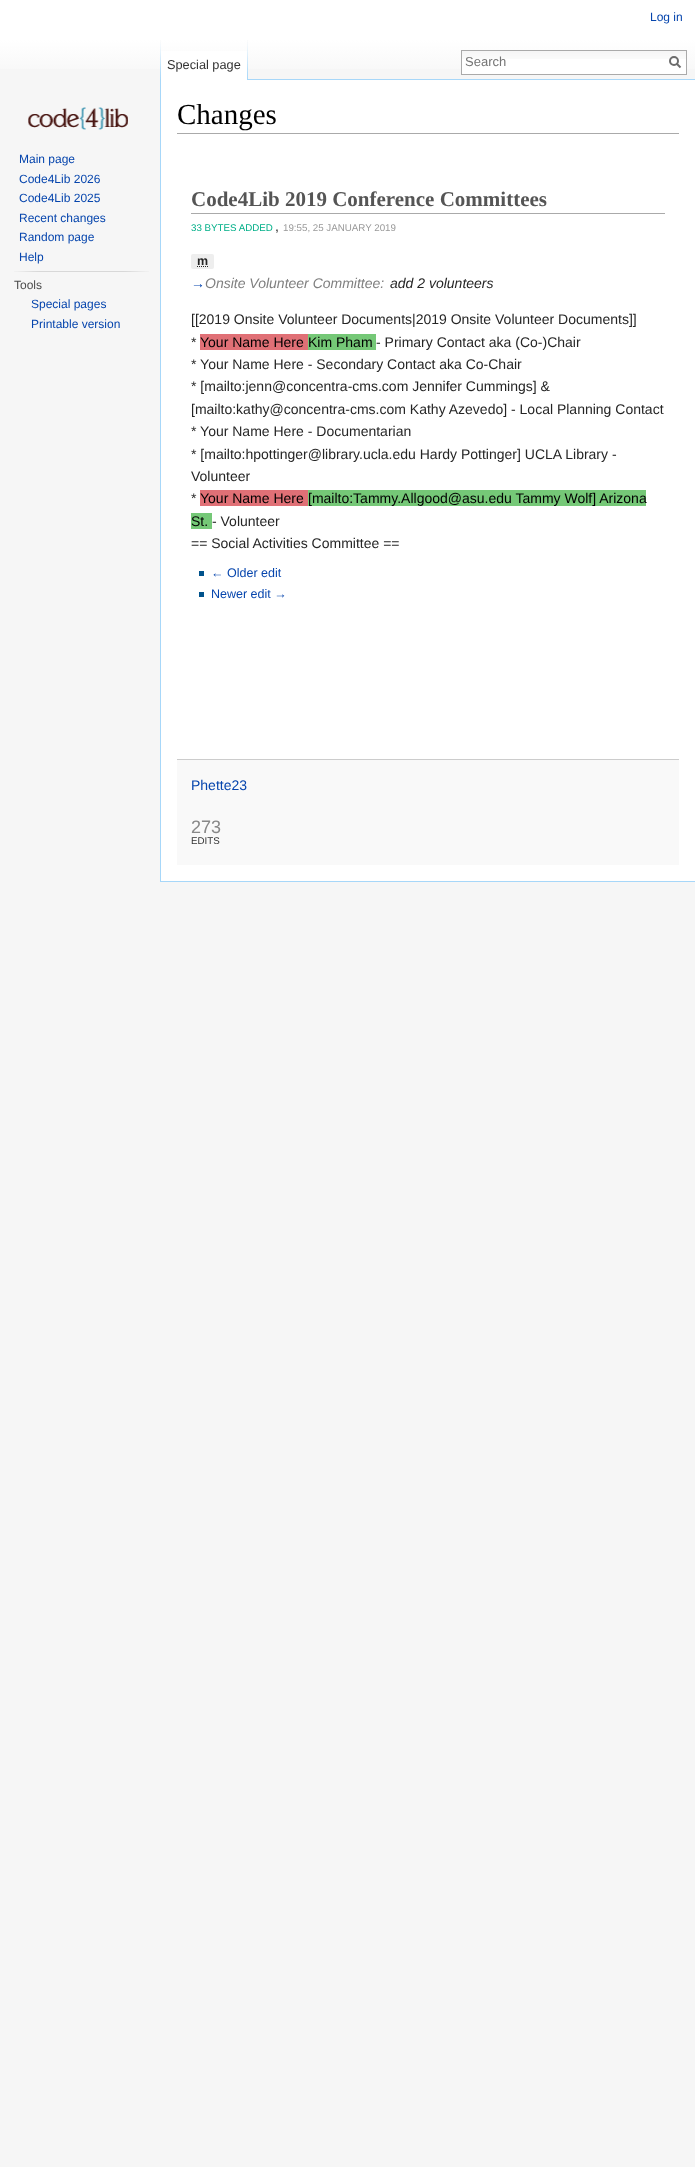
async function draw(canvas) {
  canvas.width = 695
  canvas.height = 2167
  const ctx = canvas.getContext('2d')
  ctx.miterLimit = 4
  ctx.fontKerning = 'normal'
  async function loadImage(src) {
    const img = new Image()
    img.src = src
    await img.decode()
    return img
  }
  let gradient

  ctx.fillStyle = '#f6f6f6'
  ctx.fillRect(0, 0, 695, 2167)
  gradient = ctx.createLinearGradient(348, 0, 348, 80)
  gradient.addColorStop(0.5, '#fff')
  gradient.addColorStop(1, '#f6f6f6')
  ctx.fillStyle = gradient
  ctx.fillRect(0, 0, 695, 69)
  ctx.font = '12px Liberation Sans'
  ctx.fillStyle = '#0645ad'
  ctx.fillText('Log in', 650, 21)
  ctx.drawImage(await loadImage('image0.png'), 160, 40, 1, 39)
  ctx.fillStyle = '#fff'
  ctx.fillRect(161, 51, 86, 29)
  ctx.drawImage(await loadImage('image1.png'), 247, 40, 1, 40)
  ctx.font = '12.75px Liberation Sans'
  ctx.fillStyle = '#333'
  ctx.fillText('Special page', 167, 69)
  ctx.fillStyle = '#fff'
  ctx.fillRect(462, 59, 224, 15)
  ctx.drawImage(await loadImage('image2.png'), 462, 51, 224, 8)
  ctx.strokeStyle = '#aaa'
  ctx.strokeRect(461.5, 50.5, 225, 24)
  ctx.font = '13px Liberation Sans'
  ctx.fillStyle = '#757575'
  ctx.fillText('Search', 465, 66)
  ctx.beginPath()
  ctx.moveTo(680.5, 67.5)
  ctx.lineTo(676.5, 63.5)
  ctx.strokeStyle = '#6c6c6c'
  ctx.lineWidth = 2
  ctx.stroke()
  ctx.beginPath()
  ctx.arc(674, 61, 4, 0, 2 * Math.PI)
  ctx.stroke()
  ctx.drawImage(await loadImage('image3.png'), 28, 107, 100, 23)
  ctx.font = '12px Liberation Sans'
  ctx.fillStyle = '#0645ad'
  ctx.fillText('Main page', 19, 163)
  ctx.fillText('Code4Lib 2026', 19, 183)
  ctx.fillText('Code4Lib 2025', 19, 202)
  ctx.fillText('Recent changes', 19, 222)
  ctx.fillText('Random page', 19, 241)
  ctx.fillText('Help', 19, 261)
  ctx.drawImage(await loadImage('image4.png'), 14, 271, 135, 1)
  ctx.fillStyle = '#4d4d4d'
  ctx.fillText('Tools', 14, 289)
  ctx.fillStyle = '#0645ad'
  ctx.fillText('Special pages', 31, 308)
  ctx.fillText('Printable version', 31, 328)
  ctx.fillStyle = '#fff'
  ctx.fillRect(161, 80, 534, 801)
  ctx.fillStyle = '#a7d7f9'
  ctx.fillRect(248, 79, 447, 1)
  ctx.fillRect(160, 881, 535, 1)
  ctx.fillRect(160, 79, 1, 803)
  ctx.fillStyle = '#aaa'
  ctx.fillRect(177, 133, 502, 1)
  ctx.font = '29px Liberation Serif'
  ctx.fillStyle = '#000'
  ctx.fillText('Changes', 177, 124)
  ctx.fillStyle = '#aaa'
  ctx.fillRect(191, 213, 474, 1)
  ctx.font = 'bold 21px Liberation Serif'
  ctx.fillStyle = '#555'
  ctx.fillText('Code4Lib 2019 Conference Committees', 191, 206)
  ctx.font = '9.75px Liberation Sans'
  ctx.fillStyle = '#00af88'
  ctx.fillText('33 BYTES ADDED', 191, 231)
  ctx.font = '14px Liberation Sans'
  ctx.fillStyle = '#252525'
  ctx.fillText(',', 275, 231)
  ctx.font = '9.75px Liberation Sans'
  ctx.fillStyle = '#999'
  ctx.fillText('19:55, 25 JANUARY 2019', 283, 231)
  ctx.fillStyle = '#eee'
  ctx.beginPath()
  ctx.roundRect(191, 254, 23, 15, 2)
  ctx.fill()
  ctx.font = 'bold 12.5px Liberation Sans'
  ctx.fillStyle = '#252525'
  ctx.fillText('m', 197, 265)
  ctx.beginPath()
  ctx.moveTo(197, 266.5)
  ctx.lineTo(208, 266.5)
  ctx.strokeStyle = '#252525'
  ctx.lineWidth = 1
  ctx.setLineDash([1, 1])
  ctx.stroke()
  ctx.font = 'italic 14px Liberation Sans'
  ctx.fillStyle = '#0645ad'
  ctx.fillText('→', 191, 288)
  ctx.fillStyle = '#808080'
  ctx.fillText('Onsite Volunteer Committee:', 205, 288)
  ctx.fillStyle = '#252525'
  ctx.fillText('add 2 volunteers', 390, 288)
  ctx.font = '14px Liberation Sans'
  ctx.fillText('[[2019 Onsite Volunteer Documents|2019 Onsite Volunteer Documents]]', 191, 324)
  ctx.fillText('*', 191, 347)
  ctx.fillStyle = '#e07076'
  ctx.fillRect(200, 334, 108, 16)
  ctx.fillStyle = '#000'
  ctx.fillText('Your Name Here', 200, 347)
  ctx.fillStyle = '#75c877'
  ctx.fillRect(308, 334, 68, 16)
  ctx.fillStyle = '#000'
  ctx.fillText('Kim Pham', 308, 347)
  ctx.fillStyle = '#252525'
  ctx.fillText('- Primary Contact aka (Co-)Chair', 376, 347)
  ctx.fillText('* Your Name Here - Secondary Contact aka Co-Chair', 191, 369)
  ctx.fillText('* [mailto:jenn@concentra-cms.com Jennifer Cummings] &', 191, 391)
  ctx.fillText('[mailto:kathy@concentra-cms.com Kathy Azevedo] - Local Planning Contact', 191, 414)
  ctx.fillText('* Your Name Here - Documentarian', 191, 436)
  ctx.fillText('* [mailto:hpottinger@library.ucla.edu Hardy Pottinger] UCLA Library -', 191, 459)
  ctx.fillText('Volunteer', 191, 481)
  ctx.fillText('*', 191, 503)
  ctx.fillStyle = '#e07076'
  ctx.fillRect(200, 490, 108, 16)
  ctx.fillStyle = '#000'
  ctx.fillText('Your Name Here', 200, 503)
  ctx.fillStyle = '#75c877'
  ctx.fillRect(308, 490, 338, 16)
  ctx.fillStyle = '#000'
  ctx.fillText('[mailto:Tammy.Allgood@asu.edu Tammy Wolf] Arizona', 308, 503)
  ctx.fillStyle = '#75c877'
  ctx.fillRect(191, 513, 21, 16)
  ctx.fillStyle = '#000'
  ctx.fillText('St.', 191, 526)
  ctx.fillStyle = '#252525'
  ctx.fillText('- Volunteer', 212, 526)
  ctx.fillText('== Social Activities Committee ==', 191, 548)
  ctx.fillStyle = '#00528c'
  ctx.fillRect(199, 571, 5, 5)
  ctx.font = '12.5px Liberation Sans'
  ctx.fillStyle = '#0645ad'
  ctx.fillText('← Older edit', 211, 577)
  ctx.fillStyle = '#00528c'
  ctx.fillRect(199, 592, 5, 5)
  ctx.fillStyle = '#0645ad'
  ctx.fillText('Newer edit →', 211, 598)
  ctx.fillStyle = '#f9f9f9'
  ctx.fillRect(177, 760, 502, 105)
  ctx.fillStyle = '#ccc'
  ctx.fillRect(177, 759, 502, 1)
  ctx.font = '14px Liberation Sans'
  ctx.fillStyle = '#0645ad'
  ctx.fillText('Phette23', 191, 790)
  ctx.font = '18px Liberation Sans'
  ctx.fillStyle = '#888'
  ctx.fillText('273', 191, 833)
  ctx.font = '9.75px Liberation Sans'
  ctx.fillStyle = '#333'
  ctx.fillText('EDITS', 191, 844)
}

draw(document.querySelector('canvas'))
